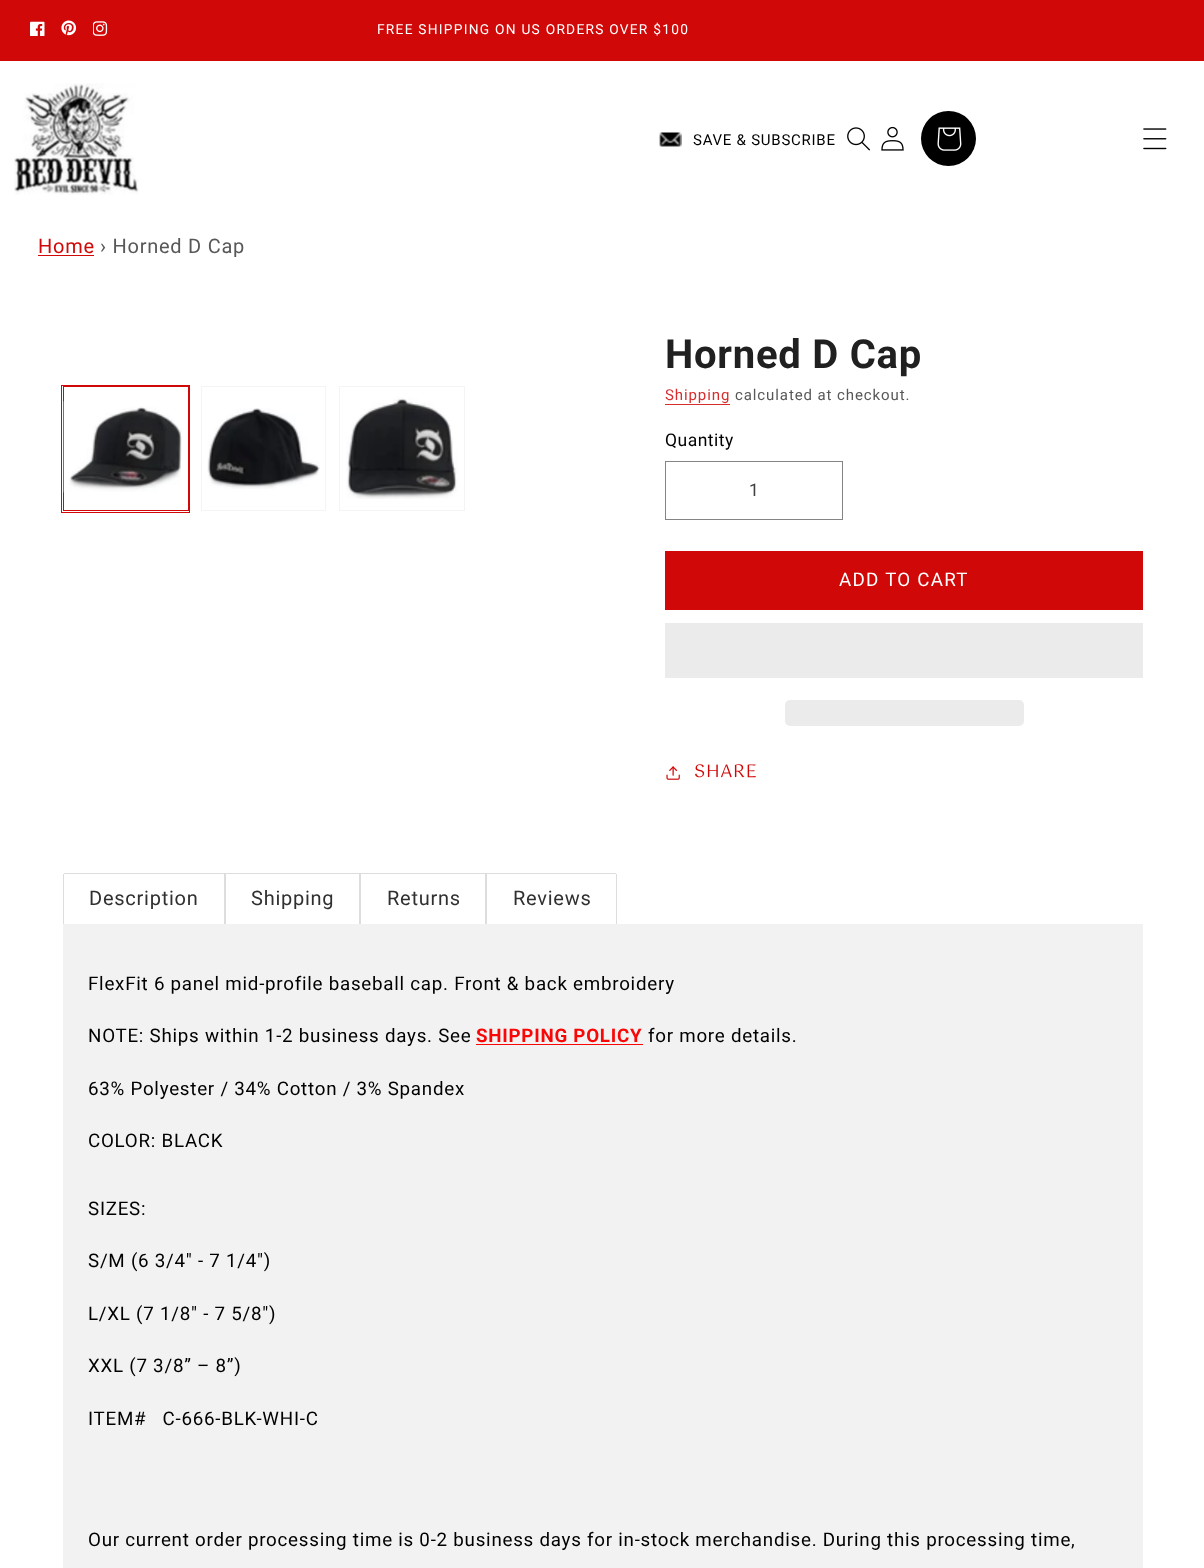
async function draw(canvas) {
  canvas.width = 1204
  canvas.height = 1568
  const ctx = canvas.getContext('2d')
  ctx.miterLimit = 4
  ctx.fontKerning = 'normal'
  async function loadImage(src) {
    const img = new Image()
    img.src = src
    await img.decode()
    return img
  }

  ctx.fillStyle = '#fff'
  ctx.fillRect(0, 0, 1204, 1568)
  ctx.fillStyle = '#d00808'
  ctx.fillRect(0, 0, 1204, 61)
  ctx.drawImage(await loadImage('image0.png'), 30, 21, 15, 15)
  ctx.drawImage(await loadImage('image1.png'), 61, 20, 15, 16)
  ctx.drawImage(await loadImage('image2.png'), 93, 21, 15, 15)
  ctx.letterSpacing = '1.25px'
  ctx.font = '13.75px Roboto'
  ctx.fillStyle = '#fff'
  ctx.fillText('FREE SHIPPING ON US ORDERS OVER $100', 377, 34)
  ctx.drawImage(await loadImage('image3.png'), 14, 83, 125, 112)
  ctx.drawImage(await loadImage('image4.png'), 659, 132, 23, 15)
  ctx.letterSpacing = '0.75px'
  ctx.font = '15px Roboto'
  ctx.fillStyle = '#000'
  ctx.fillText('SAVE & SUBSCRIBE', 693, 145)
  ctx.drawImage(await loadImage('image5.png'), 847, 127, 23, 24)
  ctx.drawImage(await loadImage('image6.png'), 881, 126, 23, 25)
  ctx.beginPath()
  ctx.arc(948.5, 138.5, 27.5, 0, 2 * Math.PI)
  ctx.fill()
  ctx.drawImage(await loadImage('image7.png'), 937, 127, 25, 24)
  ctx.drawImage(await loadImage('image8.png'), 1143, 128, 24, 22)
  ctx.font = '20px Roboto'
  ctx.fillStyle = '#d00808'
  ctx.fillText('Home', 38, 253)
  ctx.fillRect(38, 255, 56, 1)
  ctx.fillStyle = '#585858'
  ctx.fillText('› Horned D Cap', 100, 253)
  ctx.strokeStyle = '#d00808'
  ctx.strokeRect(61.5, 385.5, 128, 127)
  ctx.strokeRect(63.5, 386.5, 125, 124)
  ctx.drawImage(await loadImage('image9.png'), 63, 401, 119, 92)
  ctx.strokeStyle = '#f4f4f4'
  ctx.strokeRect(201.5, 386.5, 124, 124)
  ctx.drawImage(await loadImage('image10.png'), 207, 408, 113, 81)
  ctx.strokeRect(339.5, 386.5, 125, 124)
  ctx.drawImage(await loadImage('image11.png'), 346, 397, 112, 102)
  ctx.font = 'bold 40px Roboto'
  ctx.fillStyle = '#202020'
  ctx.fillText('Horned D Cap', 665, 368)
  ctx.letterSpacing = '0.9px'
  ctx.font = '15px Roboto'
  ctx.fillStyle = '#d72d2d'
  ctx.fillText('Shipping', 665, 400)
  ctx.fillRect(665, 404, 65, 1)
  ctx.fillStyle = '#585858'
  ctx.fillText('calculated at checkout.', 735, 400)
  ctx.letterSpacing = '0.5px'
  ctx.font = '17.5px Roboto'
  ctx.fillStyle = '#000'
  ctx.fillText('Quantity', 665, 446)
  ctx.strokeStyle = '#848484'
  ctx.strokeRect(665.5, 461.5, 177, 58)
  ctx.letterSpacing = '0px'
  ctx.fillStyle = '#414141'
  ctx.fillText('1', 749, 496)
  ctx.fillStyle = '#d00808'
  ctx.fillRect(665, 551, 478, 59)
  ctx.letterSpacing = '1.25px'
  ctx.font = '18.75px Roboto'
  ctx.fillStyle = '#fff'
  ctx.fillText('ADD TO CART', 839, 586)
  ctx.fillStyle = '#ebebeb'
  ctx.fillRect(665, 623, 478, 55)
  ctx.beginPath()
  ctx.roundRect(785, 700, 239, 26, 5)
  ctx.fill()
  ctx.drawImage(await loadImage('image12.png'), 666, 766, 14, 14)
  ctx.letterSpacing = '0.75px'
  ctx.font = '17.5px Gotu'
  ctx.fillStyle = '#d00808'
  ctx.fillText('SHARE', 694, 777)
  ctx.fillStyle = '#ddd'
  ctx.fillRect(64, 873, 552, 1)
  ctx.fillRect(224, 873, 2, 51)
  ctx.fillRect(63, 874, 1, 50)
  ctx.font = '20px Roboto'
  ctx.fillStyle = '#303030'
  ctx.fillText('Description', 89, 905)
  ctx.fillStyle = '#ddd'
  ctx.fillRect(359, 873, 2, 51)
  ctx.fillStyle = '#303030'
  ctx.fillText('Shipping', 251, 905)
  ctx.fillStyle = '#ddd'
  ctx.fillRect(485, 873, 2, 51)
  ctx.fillStyle = '#303030'
  ctx.fillText('Returns', 387, 905)
  ctx.fillStyle = '#ddd'
  ctx.fillRect(616, 874, 1, 50)
  ctx.fillStyle = '#303030'
  ctx.fillText('Reviews', 513, 905)
  ctx.fillStyle = '#f2f2f2'
  ctx.fillRect(63, 924, 1080, 644)
  ctx.font = '18.75px Roboto'
  ctx.fillStyle = '#000'
  ctx.fillText('FlexFit 6 panel mid-profile baseball cap. Front & back embroidery', 88, 990)
  ctx.fillText('NOTE: Ships within 1-2 business days. See', 88, 1042)
  ctx.font = 'bold 18.75px Roboto'
  ctx.fillStyle = '#f90707'
  ctx.fillText('SHIPPING POLICY', 476, 1042)
  ctx.fillRect(476, 1044, 167, 1)
  ctx.font = '18.75px Roboto'
  ctx.fillStyle = '#000'
  ctx.fillText('for more details.', 648, 1042)
  ctx.fillText('63% Polyester / 34% Cotton / 3% Spandex', 88, 1095)
  ctx.fillText('COLOR: BLACK', 88, 1147)
  ctx.fillText('SIZES:', 88, 1215)
  ctx.fillText('S/M (6 3/4" - 7 1/4")', 88, 1267)
  ctx.fillText('L/XL (7 1/8" - 7 5/8")', 88, 1320)
  ctx.fillText('XXL (7 3/8” – 8”)', 88, 1372)
  ctx.fillText('ITEM#   C-666-BLK-WHI-C', 88, 1425)
  ctx.fillText('Our current order processing time is 0-2 business days for in-stock merchandise. During this processing time,', 88, 1546)
}

draw(document.querySelector('canvas'))
